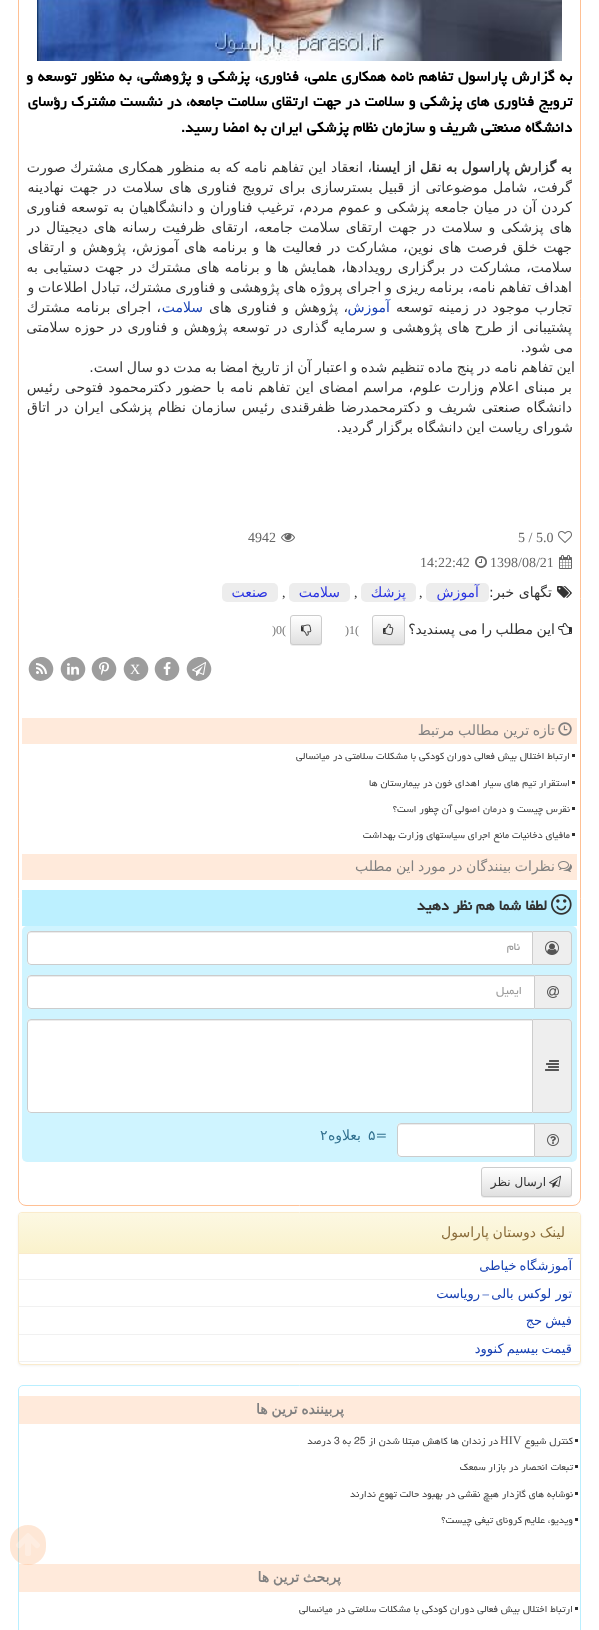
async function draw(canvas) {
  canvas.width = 599
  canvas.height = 1630
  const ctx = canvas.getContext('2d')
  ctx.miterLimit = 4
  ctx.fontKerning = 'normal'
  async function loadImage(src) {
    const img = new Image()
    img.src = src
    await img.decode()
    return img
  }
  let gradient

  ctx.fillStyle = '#fff'
  ctx.fillRect(0, 0, 599, 1630)
  ctx.beginPath()
  ctx.roundRect(18.5, -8.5, 562, 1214, 7.5)
  ctx.strokeStyle = '#ffc094'
  ctx.stroke()
  ctx.drawImage(await loadImage('image0.png'), 37, 0, 525, 61)
  ctx.wordSpacing = '0.5px'
  ctx.direction = 'rtl'
  ctx.font = 'bold 18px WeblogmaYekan'
  ctx.fillStyle = '#000'
  ctx.fillText('به گزارش پاراسول تفاهم نامه همكاری علمی، فناوری، پزشكی و پژوهشی، به منظور توسعه و', 572, 81)
  ctx.wordSpacing = '0.25px'
  ctx.fillText('ترویج فناوری های پزشكی و سلامت در جهت ارتقای سلامت جامعه، در نشست مشترك رؤسای', 572, 106)
  ctx.wordSpacing = '0px'
  ctx.fillText('دانشگاه صنعتی شریف و سازمان نظام پزشكی ایران به امضا رسید.', 572, 132)
  ctx.font = 'bold 14px DejaVu Sans'
  ctx.fillStyle = '#333'
  ctx.fillText('به گزارش پاراسول به نقل از ایسنا', 572, 172)
  ctx.font = '14px DejaVu Sans'
  ctx.fillText('، انعقاد این تفاهم نامه كه به منظور همكاری مشترك صورت', 372, 172)
  ctx.wordSpacing = '1px'
  ctx.fillText('گرفت، شامل موضوعاتی از قبیل بسترسازی برای ترویج فناوری های سلامت در جهت نهادینه', 572, 192)
  ctx.wordSpacing = '0.25px'
  ctx.fillText('كردن آن در میان جامعه پزشكی و عموم مردم، ترغیب فناوران و دانشگاهیان به توسعه فناوری', 572, 212)
  ctx.wordSpacing = '1.25px'
  ctx.fillText('های پزشكی و سلامت در جهت ارتقای سلامت جامعه، ارتقای ظرفیت رسانه های دیجیتال در', 572, 232)
  ctx.wordSpacing = '1.1px'
  ctx.fillText('جهت خلق فرصت های نوین، مشاركت در فعالیت ها و برنامه های آموزش، پژوهش و ارتقای', 572, 252)
  ctx.wordSpacing = '1px'
  ctx.fillText('سلامت، مشاركت در برگزاری رویدادها، همایش ها و برنامه های مشترك در جهت دستیابی به', 572, 272)
  ctx.wordSpacing = '-0.6px'
  ctx.fillText('اهداف تفاهم نامه، برنامه ریزی و اجرای پروژه های پژوهشی و فناوری مشترك، تبادل اطلاعات و', 572, 292)
  ctx.wordSpacing = '1px'
  ctx.fillText('تجارب موجود در زمینه توسعه', 572, 312)
  ctx.wordSpacing = '0px'
  ctx.fillStyle = '#1841b2'
  ctx.fillText('آموزش', 390, 312)
  ctx.wordSpacing = '1px'
  ctx.fillStyle = '#333'
  ctx.fillText('، پژوهش و فناوری های', 348, 312)
  ctx.wordSpacing = '0px'
  ctx.fillStyle = '#1841b2'
  ctx.fillText('سلامت', 203, 312)
  ctx.wordSpacing = '1px'
  ctx.fillStyle = '#333'
  ctx.fillText('، اجرای برنامه مشترك', 161, 312)
  ctx.wordSpacing = '0.5px'
  ctx.fillText('پشتیبانی از طرح های پژوهشی و سرمایه گذاری در توسعه پژوهش و فناوری در حوزه سلامتی', 572, 332)
  ctx.wordSpacing = '-0.8px'
  ctx.fillText('می شود.', 573, 352)
  ctx.fillText('این تفاهم نامه در پنج ماده تنظیم شده و اعتبار آن از تاریخ امضا به مدت دو سال است.', 575, 372)
  ctx.wordSpacing = '0.75px'
  ctx.fillText('بر مبنای اعلام وزارت علوم، مراسم امضای این تفاهم نامه با حضور دكترمحمود فتوحی رئیس', 572, 392)
  ctx.wordSpacing = '1.1px'
  ctx.fillText('دانشگاه صنعتی شریف و دكترمحمدرضا ظفرقندی رئیس سازمان نظام پزشكی ایران در اتاق', 572, 412)
  ctx.wordSpacing = '-0.8px'
  ctx.fillText('شورای ریاست این دانشگاه برگزار گردید.', 573, 432)
  ctx.drawImage(await loadImage('image1.png'), 558, 531, 14, 12)
  ctx.wordSpacing = '0px'
  ctx.direction = 'ltr'
  ctx.font = '14px Liberation Serif'
  ctx.fillStyle = '#666'
  ctx.fillText('5.0', 536, 542)
  ctx.fillText('5 /', 518, 542)
  ctx.drawImage(await loadImage('image2.png'), 281, 533, 14, 9)
  ctx.fillText('4942', 248, 542)
  ctx.drawImage(await loadImage('image3.png'), 559, 555, 13, 14)
  ctx.fillText('1398/08/21', 490, 567)
  ctx.drawImage(await loadImage('image4.png'), 475, 556, 12, 12)
  ctx.fillText('14:22:42', 420, 567)
  ctx.drawImage(await loadImage('image5.png'), 557, 586, 15, 12)
  ctx.direction = 'rtl'
  ctx.font = '14px DejaVu Sans'
  ctx.fillStyle = '#333'
  ctx.fillText('تگهای خبر:', 552, 597)
  ctx.fillStyle = '#ededed'
  ctx.beginPath()
  ctx.roundRect(426, 583, 63, 19, 5)
  ctx.fill()
  ctx.fillStyle = '#2b34e1'
  ctx.fillText('آموزش', 479, 597)
  ctx.direction = 'ltr'
  ctx.font = '14px Liberation Serif'
  ctx.fillStyle = '#333'
  ctx.fillText(',', 419, 597)
  ctx.fillStyle = '#ededed'
  ctx.beginPath()
  ctx.roundRect(361, 583, 55, 19, 5)
  ctx.fill()
  ctx.direction = 'rtl'
  ctx.font = '14px DejaVu Sans'
  ctx.fillStyle = '#2b34e1'
  ctx.fillText('پزشك', 406, 597)
  ctx.direction = 'ltr'
  ctx.font = '14px Liberation Serif'
  ctx.fillStyle = '#333'
  ctx.fillText(',', 354, 597)
  ctx.fillStyle = '#ededed'
  ctx.beginPath()
  ctx.roundRect(289, 583, 61, 19, 5)
  ctx.fill()
  ctx.direction = 'rtl'
  ctx.font = '14px DejaVu Sans'
  ctx.fillStyle = '#2b34e1'
  ctx.fillText('سلامت', 340, 597)
  ctx.direction = 'ltr'
  ctx.font = '14px Liberation Serif'
  ctx.fillStyle = '#333'
  ctx.fillText(',', 282, 597)
  ctx.fillStyle = '#ededed'
  ctx.beginPath()
  ctx.roundRect(222, 583, 56, 19, 5)
  ctx.fill()
  ctx.direction = 'rtl'
  ctx.font = '14px DejaVu Sans'
  ctx.fillStyle = '#2b34e1'
  ctx.fillText('صنعت', 268, 597)
  ctx.drawImage(await loadImage('image6.png'), 558, 623, 14, 12)
  ctx.wordSpacing = '-0.8px'
  ctx.fillStyle = '#333'
  ctx.fillText('این مطلب را می پسندید؟', 555, 634)
  ctx.fillStyle = '#00000012'
  ctx.filter = 'blur(0.5px)'
  ctx.beginPath()
  ctx.roundRect(372, 616, 33, 30, 3)
  ctx.fill()
  ctx.filter = 'none'
  ctx.save()
  ctx.beginPath()
  ctx.roundRect(372, 615, 33, 30, 3)
  ctx.clip()
  gradient = ctx.createLinearGradient(389, 616, 389, 644)
  gradient.addColorStop(0, '#fff')
  gradient.addColorStop(1, '#e0e0e0')
  ctx.fillStyle = gradient
  ctx.fillRect(372, 616, 33, 28)
  ctx.restore()
  ctx.beginPath()
  ctx.roundRect(372.5, 615.5, 32, 29, 2.5)
  ctx.strokeStyle = '#ccc'
  ctx.stroke()
  ctx.drawImage(await loadImage('image7.png'), 383, 623, 11, 12)
  ctx.wordSpacing = '0px'
  ctx.direction = 'ltr'
  ctx.font = '12px Liberation Serif'
  ctx.fillStyle = '#777'
  ctx.fillText(')1(', 345, 634)
  ctx.fillStyle = '#00000012'
  ctx.filter = 'blur(0.5px)'
  ctx.beginPath()
  ctx.roundRect(290, 616, 32, 30, 3)
  ctx.fill()
  ctx.filter = 'none'
  ctx.save()
  ctx.beginPath()
  ctx.roundRect(290, 615, 32, 30, 3)
  ctx.clip()
  gradient = ctx.createLinearGradient(306, 616, 306, 644)
  gradient.addColorStop(0, '#fff')
  gradient.addColorStop(1, '#e0e0e0')
  ctx.fillStyle = gradient
  ctx.fillRect(290, 616, 32, 28)
  ctx.restore()
  ctx.beginPath()
  ctx.roundRect(290.5, 615.5, 31, 29, 2.5)
  ctx.stroke()
  ctx.drawImage(await loadImage('image8.png'), 301, 624, 11, 12)
  ctx.fillStyle = '#777'
  ctx.fillText(')0(', 272, 634)
  ctx.fillStyle = '#9d9d9d'
  ctx.beginPath()
  ctx.moveTo(209.5, 663)
  ctx.bezierCurveTo(217.5, 676.5, 196.5, 688.5, 188.5, 675)
  ctx.bezierCurveTo(180.5, 661.5, 201.5, 649.5, 209.5, 663)
  ctx.closePath()
  ctx.fill()
  ctx.drawImage(await loadImage('image9.png'), 192, 662, 14, 14)
  ctx.beginPath()
  ctx.moveTo(177.5, 663)
  ctx.bezierCurveTo(185.5, 676.5, 164.5, 688.5, 156.5, 675)
  ctx.bezierCurveTo(148.5, 661.5, 169.5, 649.5, 177.5, 663)
  ctx.closePath()
  ctx.fill()
  ctx.drawImage(await loadImage('image10.png'), 163, 662, 8, 13)
  ctx.beginPath()
  ctx.moveTo(146.5, 663)
  ctx.bezierCurveTo(154.5, 676.5, 133.5, 688.5, 125.5, 675)
  ctx.bezierCurveTo(117.5, 661.5, 138.5, 649.5, 146.5, 663)
  ctx.closePath()
  ctx.fill()
  ctx.font = '14px Liberation Serif'
  ctx.fillStyle = '#fff'
  ctx.fillText('X', 130, 674)
  ctx.fillStyle = '#9d9d9d'
  ctx.beginPath()
  ctx.moveTo(114.5, 663)
  ctx.bezierCurveTo(122.5, 676.5, 101.5, 688.5, 93.5, 675)
  ctx.bezierCurveTo(85.5, 661.5, 106.5, 649.5, 114.5, 663)
  ctx.closePath()
  ctx.fill()
  ctx.drawImage(await loadImage('image11.png'), 99, 662, 10, 13)
  ctx.beginPath()
  ctx.moveTo(83.5, 663)
  ctx.bezierCurveTo(91.5, 676.5, 70.5, 688.5, 62.5, 675)
  ctx.bezierCurveTo(54.5, 661.5, 75.5, 649.5, 83.5, 663)
  ctx.closePath()
  ctx.fill()
  ctx.drawImage(await loadImage('image12.png'), 67, 663, 12, 12)
  ctx.beginPath()
  ctx.moveTo(51.5, 663)
  ctx.bezierCurveTo(59.5, 676.5, 38.5, 688.5, 30.5, 675)
  ctx.bezierCurveTo(22.5, 661.5, 43.5, 649.5, 51.5, 663)
  ctx.closePath()
  ctx.fill()
  ctx.drawImage(await loadImage('image13.png'), 36, 663, 11, 11)
  ctx.fillStyle = '#ffeadb'
  ctx.fillRect(22, 718, 555, 26)
  ctx.drawImage(await loadImage('image14.png'), 558, 722, 14, 14)
  ctx.wordSpacing = '-0.8px'
  ctx.direction = 'rtl'
  ctx.font = '14px DejaVu Sans'
  ctx.fillStyle = '#808080'
  ctx.fillText('تازه ترین مطالب مرتبط', 555, 735)
  ctx.fillStyle = '#333'
  ctx.fillRect(572, 754, 3, 3)
  ctx.wordSpacing = '0px'
  ctx.font = '12px WeblogmaYekan'
  ctx.fillStyle = '#4a4a4a'
  ctx.fillText('ارتباط اختلال بیش فعالی دوران کودکی با مشکلات سلامتی در میانسالی', 570, 759)
  ctx.fillStyle = '#333'
  ctx.fillRect(572, 781, 3, 3)
  ctx.fillStyle = '#4a4a4a'
  ctx.fillText('استقرار تیم های سیار اهدای خون در بیمارستان ها', 570, 786)
  ctx.fillStyle = '#333'
  ctx.fillRect(572, 807, 3, 3)
  ctx.fillStyle = '#4a4a4a'
  ctx.fillText('نقرس چیست و درمان اصولی آن چطور است؟', 570, 812)
  ctx.fillStyle = '#333'
  ctx.fillRect(572, 833, 3, 3)
  ctx.fillStyle = '#4a4a4a'
  ctx.fillText('مافیای دخانیات مانع اجرای سیاستهای وزارت بهداشت', 570, 838)
  ctx.fillStyle = '#ffeadb'
  ctx.fillRect(22, 854, 555, 26)
  ctx.drawImage(await loadImage('image15.png'), 558, 861, 14, 11)
  ctx.wordSpacing = '-0.8px'
  ctx.font = '14px DejaVu Sans'
  ctx.fillStyle = '#808080'
  ctx.fillText('نظرات بینندگان در مورد این مطلب', 555, 871)
  ctx.fillStyle = '#bcf0ff'
  ctx.fillRect(22, 890, 555, 36)
  ctx.drawImage(await loadImage('image16.png'), 551, 894, 21, 21)
  ctx.wordSpacing = '0px'
  ctx.font = 'bold 18px WeblogmaYekan'
  ctx.fillStyle = '#333'
  ctx.fillText('لطفا شما هم', 547, 910)
  ctx.fillText('نظر دهید', 472, 910)
  ctx.fillStyle = '#cff4ff'
  ctx.beginPath()
  ctx.roundRect(22, 926, 555, 236, 5)
  ctx.fill()
  ctx.fillStyle = '#eee'
  ctx.beginPath()
  ctx.roundRect(533, 931, 39, 34, [0, 4, 4, 0])
  ctx.fill()
  ctx.fillStyle = '#ccc'
  ctx.beginPath()
  ctx.moveTo(533, 931)
  ctx.lineTo(568, 931)
  ctx.bezierCurveTo(570, 931, 572, 933, 572, 935)
  ctx.lineTo(572, 961)
  ctx.bezierCurveTo(572, 963, 570, 965, 568, 965)
  ctx.lineTo(533, 965)
  ctx.closePath()
  ctx.moveTo(533, 932)
  ctx.lineTo(568, 932)
  ctx.bezierCurveTo(569.5, 932, 571, 933.5, 571, 935)
  ctx.lineTo(571, 961)
  ctx.bezierCurveTo(571, 962.5, 569.5, 964, 568, 964)
  ctx.lineTo(533, 964)
  ctx.closePath()
  ctx.fill('evenodd')
  ctx.drawImage(await loadImage('image17.png'), 545, 941, 14, 14)
  ctx.fillStyle = '#fff'
  ctx.beginPath()
  ctx.roundRect(27, 931, 506, 34, [4, 0, 0, 4])
  ctx.fill()
  ctx.fillStyle = '#ececec'
  ctx.beginPath()
  ctx.moveTo(31, 933)
  ctx.lineTo(532, 933)
  ctx.lineTo(532, 932)
  ctx.lineTo(31, 932)
  ctx.bezierCurveTo(29, 932, 28, 934, 28, 936)
  ctx.bezierCurveTo(28, 934, 29, 933, 31, 933)
  ctx.closePath()
  ctx.fill()
  ctx.beginPath()
  ctx.roundRect(27.5, 931.5, 505, 33, [3.5, 0, 0, 3.5])
  ctx.stroke()
  ctx.font = '14px WeblogmaYekan'
  ctx.fillStyle = '#999'
  ctx.fillText('نام', 520, 950)
  ctx.fillStyle = '#eee'
  ctx.beginPath()
  ctx.roundRect(535, 975, 37, 34, [0, 4, 4, 0])
  ctx.fill()
  ctx.fillStyle = '#ccc'
  ctx.beginPath()
  ctx.moveTo(535, 975)
  ctx.lineTo(568, 975)
  ctx.bezierCurveTo(570, 975, 572, 977, 572, 979)
  ctx.lineTo(572, 1005)
  ctx.bezierCurveTo(572, 1007, 570, 1009, 568, 1009)
  ctx.lineTo(535, 1009)
  ctx.closePath()
  ctx.moveTo(535, 976)
  ctx.lineTo(568, 976)
  ctx.bezierCurveTo(569.5, 976, 571, 977.5, 571, 979)
  ctx.lineTo(571, 1005)
  ctx.bezierCurveTo(571, 1006.5, 569.5, 1008, 568, 1008)
  ctx.lineTo(535, 1008)
  ctx.closePath()
  ctx.fill('evenodd')
  ctx.drawImage(await loadImage('image18.png'), 547, 986, 12, 12)
  ctx.fillStyle = '#fff'
  ctx.beginPath()
  ctx.roundRect(27, 975, 508, 34, [4, 0, 0, 4])
  ctx.fill()
  ctx.fillStyle = '#ececec'
  ctx.beginPath()
  ctx.moveTo(31, 977)
  ctx.lineTo(534, 977)
  ctx.lineTo(534, 976)
  ctx.lineTo(31, 976)
  ctx.bezierCurveTo(29, 976, 28, 978, 28, 980)
  ctx.bezierCurveTo(28, 978, 29, 977, 31, 977)
  ctx.closePath()
  ctx.fill()
  ctx.beginPath()
  ctx.roundRect(27.5, 975.5, 507, 33, [3.5, 0, 0, 3.5])
  ctx.stroke()
  ctx.fillStyle = '#999'
  ctx.fillText('ایمیل', 522, 994)
  ctx.fillStyle = '#eee'
  ctx.beginPath()
  ctx.roundRect(533, 1019, 39, 94, [0, 4, 4, 0])
  ctx.fill()
  ctx.fillStyle = '#ccc'
  ctx.beginPath()
  ctx.moveTo(533, 1019)
  ctx.lineTo(568, 1019)
  ctx.bezierCurveTo(570, 1019, 572, 1021, 572, 1023)
  ctx.lineTo(572, 1109)
  ctx.bezierCurveTo(572, 1111, 570, 1113, 568, 1113)
  ctx.lineTo(533, 1113)
  ctx.closePath()
  ctx.moveTo(533, 1020)
  ctx.lineTo(568, 1020)
  ctx.bezierCurveTo(570, 1020, 571, 1021, 571, 1023)
  ctx.lineTo(571, 1109)
  ctx.bezierCurveTo(571, 1111, 570, 1112, 568, 1112)
  ctx.lineTo(533, 1112)
  ctx.closePath()
  ctx.fill('evenodd')
  ctx.drawImage(await loadImage('image19.png'), 545, 1060, 14, 11)
  ctx.fillStyle = '#fff'
  ctx.beginPath()
  ctx.roundRect(27, 1019, 506, 94, [4, 0, 0, 4])
  ctx.fill()
  ctx.fillStyle = '#ececec'
  ctx.beginPath()
  ctx.moveTo(31, 1021)
  ctx.lineTo(532, 1021)
  ctx.lineTo(532, 1020)
  ctx.lineTo(31, 1020)
  ctx.bezierCurveTo(29, 1020, 28, 1022, 28, 1024)
  ctx.bezierCurveTo(28, 1022, 29, 1021, 31, 1021)
  ctx.closePath()
  ctx.fill()
  ctx.beginPath()
  ctx.roundRect(27.5, 1019.5, 505, 93, [3.5, 0, 0, 3.5])
  ctx.stroke()
  ctx.fillStyle = '#eee'
  ctx.beginPath()
  ctx.roundRect(535, 1123, 37, 34, [0, 4, 4, 0])
  ctx.fill()
  ctx.fillStyle = '#ccc'
  ctx.beginPath()
  ctx.moveTo(535, 1123)
  ctx.lineTo(568, 1123)
  ctx.bezierCurveTo(570, 1123, 572, 1125, 572, 1127)
  ctx.lineTo(572, 1153)
  ctx.bezierCurveTo(572, 1155, 570, 1157, 568, 1157)
  ctx.lineTo(535, 1157)
  ctx.closePath()
  ctx.moveTo(535, 1124)
  ctx.lineTo(568, 1124)
  ctx.bezierCurveTo(569.5, 1124, 571, 1125.5, 571, 1127)
  ctx.lineTo(571, 1153)
  ctx.bezierCurveTo(571, 1154.5, 569.5, 1156, 568, 1156)
  ctx.lineTo(535, 1156)
  ctx.closePath()
  ctx.fill('evenodd')
  ctx.drawImage(await loadImage('image20.png'), 547, 1134, 12, 12)
  ctx.fillStyle = '#fff'
  ctx.beginPath()
  ctx.roundRect(397, 1123, 138, 34, [4, 0, 0, 4])
  ctx.fill()
  ctx.fillStyle = '#ececec'
  ctx.beginPath()
  ctx.moveTo(401, 1125)
  ctx.lineTo(534, 1125)
  ctx.lineTo(534, 1124)
  ctx.lineTo(401, 1124)
  ctx.bezierCurveTo(399, 1124, 398, 1126, 398, 1128)
  ctx.bezierCurveTo(398, 1126, 399, 1125, 401, 1125)
  ctx.closePath()
  ctx.fill()
  ctx.beginPath()
  ctx.roundRect(397.5, 1123.5, 137, 33, [3.5, 0, 0, 3.5])
  ctx.stroke()
  ctx.direction = 'ltr'
  ctx.font = '14px DejaVu Sans'
  ctx.fillStyle = '#31708f'
  ctx.fillText('۵=', 368, 1140)
  ctx.direction = 'rtl'
  ctx.fillText('بعلاوه', 361, 1140)
  ctx.direction = 'ltr'
  ctx.fillText('۲', 320, 1140)
  ctx.fillStyle = '#00000012'
  ctx.filter = 'blur(0.5px)'
  ctx.beginPath()
  ctx.roundRect(481, 1168, 91, 30, 3)
  ctx.fill()
  ctx.filter = 'none'
  ctx.save()
  ctx.beginPath()
  ctx.roundRect(481, 1167, 91, 30, 3)
  ctx.clip()
  gradient = ctx.createLinearGradient(527, 1168, 527, 1196)
  gradient.addColorStop(0, '#fff')
  gradient.addColorStop(1, '#e0e0e0')
  ctx.fillStyle = gradient
  ctx.fillRect(481, 1168, 91, 28)
  ctx.restore()
  ctx.beginPath()
  ctx.roundRect(481.5, 1167.5, 90, 29, 2.5)
  ctx.stroke()
  ctx.drawImage(await loadImage('image21.png'), 549, 1175, 12, 13)
  ctx.direction = 'rtl'
  ctx.font = '12px DejaVu Sans'
  ctx.fillStyle = '#333'
  ctx.fillText('ارسال نظر', 546, 1186)
  ctx.fillStyle = '#0000000d'
  ctx.filter = 'blur(1px)'
  ctx.beginPath()
  ctx.roundRect(18, 1213, 563, 153, 4)
  ctx.fill()
  ctx.filter = 'none'
  ctx.fillStyle = '#fff'
  ctx.beginPath()
  ctx.roundRect(18.5, 1212.5, 562, 152, 3.5)
  ctx.fill()
  ctx.strokeStyle = '#faebcc'
  ctx.stroke()
  gradient = ctx.createLinearGradient(300, 1213, 300, 1253)
  gradient.addColorStop(0, '#fcf8e3')
  gradient.addColorStop(1, '#faf2cc')
  ctx.fillStyle = gradient
  ctx.beginPath()
  ctx.roundRect(19, 1213, 561, 40, [3, 3, 0, 0])
  ctx.fill()
  ctx.fillStyle = '#faebcc'
  ctx.fillRect(19, 1253, 561, 1)
  ctx.wordSpacing = '-0.8px'
  ctx.font = '14px DejaVu Sans'
  ctx.fillStyle = '#8a6d3b'
  ctx.fillText('لینک دوستان پاراسول', 565, 1237)
  ctx.fillStyle = '#f1f1f1'
  ctx.fillRect(19, 1279, 561, 1)
  ctx.wordSpacing = '-1px'
  ctx.font = '13px DejaVu Sans'
  ctx.fillStyle = '#1841b2'
  ctx.fillText('آموزشگاه خیاطی', 572, 1270)
  ctx.fillStyle = '#f1f1f1'
  ctx.fillRect(19, 1306, 561, 1)
  ctx.wordSpacing = '0px'
  ctx.fillStyle = '#1841b2'
  ctx.fillText('تور لوکس بالی', 572, 1298)
  ctx.font = '13px Liberation Serif'
  ctx.fillText('–', 489, 1298)
  ctx.font = '13px DejaVu Sans'
  ctx.fillText('رویاست', 480, 1298)
  ctx.fillStyle = '#f1f1f1'
  ctx.fillRect(19, 1334, 561, 1)
  ctx.wordSpacing = '-1px'
  ctx.fillStyle = '#1841b2'
  ctx.fillText('فیش حج', 572, 1325)
  ctx.fillStyle = '#f1f1f1'
  ctx.fillRect(19, 1361, 561, 1)
  ctx.fillStyle = '#1841b2'
  ctx.fillText('قیمت بیسیم کنوود', 572, 1353)
  ctx.beginPath()
  ctx.roundRect(18.5, 1385.5, 562, 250, 4.5)
  ctx.strokeStyle = '#b9efff'
  ctx.stroke()
  ctx.fillStyle = '#ffeadb'
  ctx.fillRect(19, 1396, 561, 28)
  ctx.wordSpacing = '-0.8px'
  ctx.font = 'bold 14px DejaVu Sans'
  ctx.fillStyle = '#808080'
  ctx.fillText('پربیننده ترین ها', 344, 1414)
  ctx.fillStyle = '#333'
  ctx.fillRect(575, 1439, 3, 3)
  ctx.wordSpacing = '0px'
  ctx.font = '12px WeblogmaYekan'
  ctx.fillStyle = '#4a4a4a'
  ctx.fillText('کنترل شیوع', 573, 1444)
  ctx.direction = 'ltr'
  ctx.font = '12px Liberation Serif'
  ctx.fillText('HIV', 500, 1444)
  ctx.direction = 'rtl'
  ctx.font = '12px WeblogmaYekan'
  ctx.fillText('در زندان ها کاهش مبتلا شدن از', 498, 1444)
  ctx.direction = 'ltr'
  ctx.fillText('25', 354, 1444)
  ctx.direction = 'rtl'
  ctx.fillText('به', 351, 1444)
  ctx.direction = 'ltr'
  ctx.fillText('3', 334, 1444)
  ctx.direction = 'rtl'
  ctx.fillText('درصد', 331, 1444)
  ctx.fillStyle = '#333'
  ctx.fillRect(575, 1465, 3, 3)
  ctx.fillStyle = '#4a4a4a'
  ctx.fillText('تبعات انحصار در بازار سمعک', 573, 1470)
  ctx.fillStyle = '#333'
  ctx.fillRect(575, 1492, 3, 3)
  ctx.fillStyle = '#4a4a4a'
  ctx.fillText('نوشابه های گازدار هیچ نقشی در بهبود حالت تهوع ندارند', 573, 1497)
  ctx.fillStyle = '#333'
  ctx.fillRect(575, 1518, 3, 3)
  ctx.fillStyle = '#4a4a4a'
  ctx.fillText('ویدیو، علایم کرونای تیغی چیست؟', 573, 1523)
  ctx.fillStyle = '#ffeadb'
  ctx.fillRect(19, 1564, 561, 28)
  ctx.wordSpacing = '-0.8px'
  ctx.font = 'bold 14px DejaVu Sans'
  ctx.fillStyle = '#808080'
  ctx.fillText('پربحث ترین ها', 341, 1582)
  ctx.fillStyle = '#333'
  ctx.fillRect(575, 1607, 3, 3)
  ctx.wordSpacing = '0px'
  ctx.font = '12px WeblogmaYekan'
  ctx.fillStyle = '#4a4a4a'
  ctx.fillText('ارتباط اختلال بیش فعالی دوران کودکی با مشکلات سلامتی در میانسالی', 573, 1612)
  ctx.fillStyle = '#fc7d2430'
  ctx.beginPath()
  ctx.roundRect(10, 1525, 36, 40, 18)
  ctx.fill()
  ctx.drawImage(await loadImage('image22.png'), 16, 1533, 24, 23)
}

draw(document.querySelector('canvas'))
